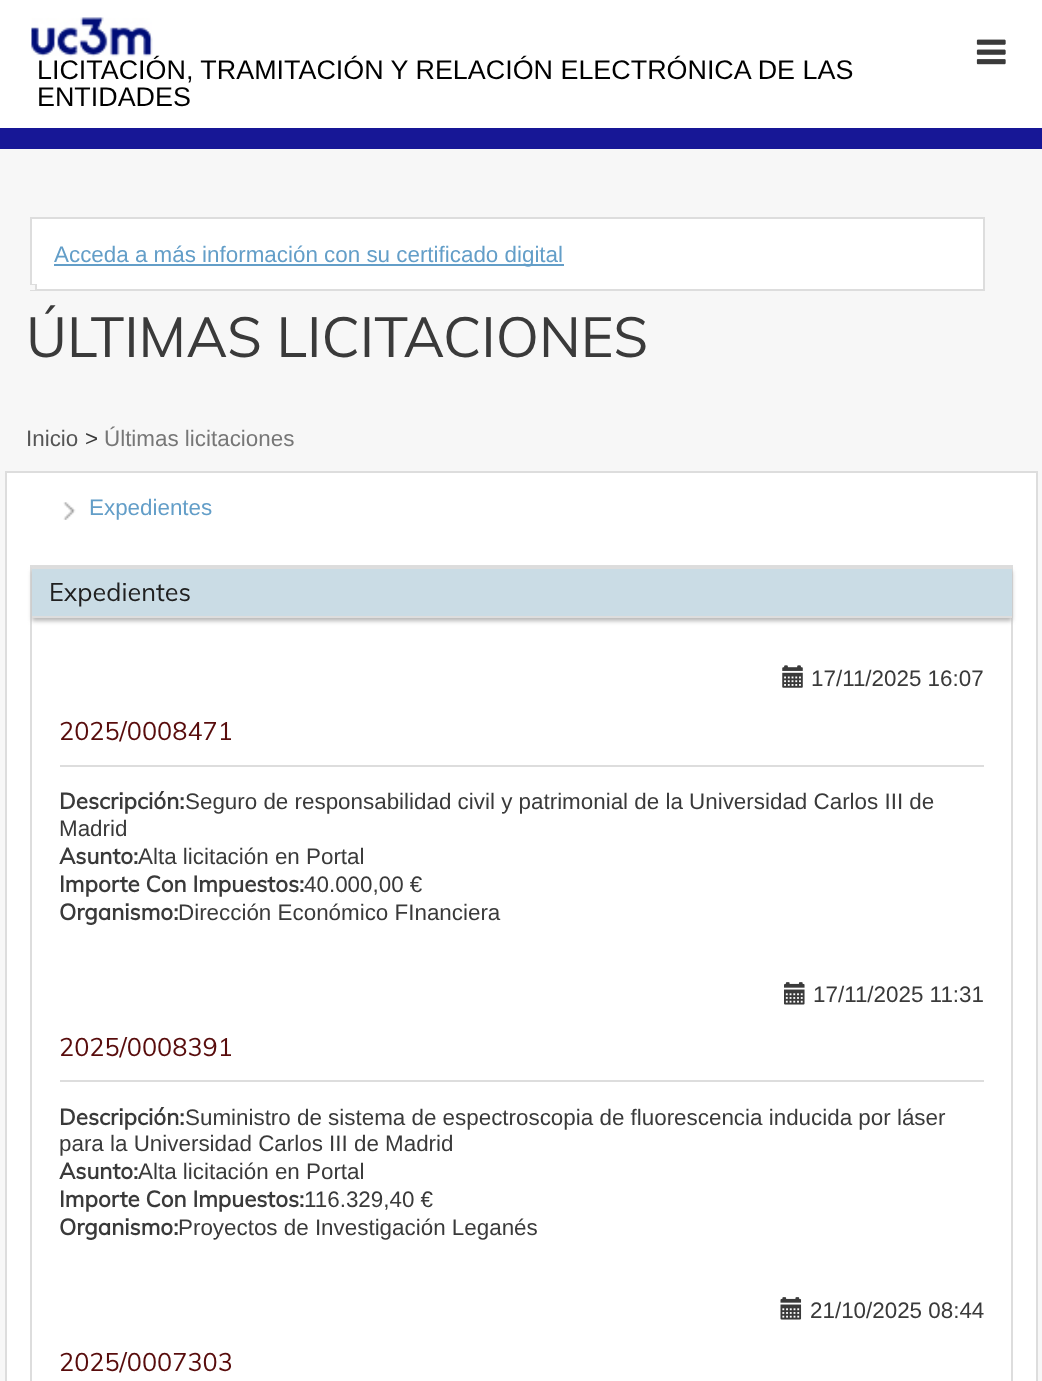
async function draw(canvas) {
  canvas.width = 1042
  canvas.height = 1381
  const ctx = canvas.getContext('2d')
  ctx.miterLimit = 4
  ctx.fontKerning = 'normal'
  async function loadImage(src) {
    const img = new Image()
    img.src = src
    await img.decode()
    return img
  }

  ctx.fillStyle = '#f7f7f7'
  ctx.fillRect(0, 0, 1042, 1381)
  ctx.fillStyle = '#fff'
  ctx.fillRect(0, 0, 1042, 128)
  ctx.fillStyle = '#171796'
  ctx.fillRect(0, 128, 1042, 21)
  ctx.drawImage(await loadImage('image0.png'), 31, 17, 122, 40)
  ctx.font = '26.9px Liberation Sans'
  ctx.fillStyle = '#000'
  ctx.fillText('LICITACIÓN, TRAMITACIÓN Y RELACIÓN ELECTRÓNICA DE LAS', 37, 79)
  ctx.fillText('ENTIDADES', 37, 106)
  ctx.drawImage(await loadImage('image1.png'), 976, 39, 30, 26)
  ctx.fillStyle = '#fff'
  ctx.beginPath()
  ctx.rect(31, 218, 953, 72)
  ctx.fill()
  ctx.strokeStyle = '#ddd'
  ctx.lineWidth = 2
  ctx.stroke()
  ctx.fillStyle = '#639ec8'
  ctx.fillRect(54, 264, 510, 2)
  ctx.font = '22.4px Liberation Sans'
  ctx.fillText('Acceda a más información con su certificado digital', 54, 262)
  ctx.fillStyle = '#ddd'
  ctx.beginPath()
  ctx.moveTo(32, 284)
  ctx.lineTo(32, 285)
  ctx.lineTo(35, 285)
  ctx.lineTo(35, 289)
  ctx.lineTo(37, 289)
  ctx.lineTo(37, 284)
  ctx.closePath()
  ctx.fill()
  ctx.fillStyle = '#f7f7f7'
  ctx.fillRect(30, 285, 5, 5)
  ctx.font = '56px Muli'
  ctx.fillStyle = '#3a3a3a'
  ctx.fillText('ÚLTIMAS LICITACIONES', 26, 357)
  ctx.font = '22.4px Liberation Sans'
  ctx.fillStyle = '#565656'
  ctx.fillText('Inicio', 26, 446)
  ctx.fillStyle = '#3a3a3a'
  ctx.fillText('>', 85, 446)
  ctx.fillStyle = '#777'
  ctx.fillText('Últimas licitaciones', 104, 446)
  ctx.fillStyle = '#fff'
  ctx.beginPath()
  ctx.rect(6, 472, 1031, 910)
  ctx.fill()
  ctx.stroke()
  ctx.drawImage(await loadImage('image2.png'), 63, 502, 13, 18)
  ctx.fillStyle = '#639ec8'
  ctx.fillText('Expedientes', 89, 515)
  ctx.strokeRect(31, 566, 981, 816)
  ctx.fillStyle = '#b7b7b7'
  ctx.filter = 'blur(2px)'
  ctx.beginPath()
  ctx.rect(32, 571, 980, 50)
  ctx.fill()
  ctx.filter = 'none'
  ctx.fillStyle = '#cadce5'
  ctx.fillRect(32, 569, 980, 47)
  ctx.fillStyle = '#ddd'
  ctx.fillRect(32, 567, 980, 2)
  ctx.fillRect(32, 616, 980, 2)
  ctx.font = '25.25px Muli'
  ctx.fillStyle = '#202020'
  ctx.fillText('Expedientes', 49, 601)
  ctx.drawImage(await loadImage('image3.png'), 782, 665, 21, 23)
  ctx.font = '22.4px Liberation Sans'
  ctx.fillStyle = '#3a3a3a'
  ctx.fillText('17/11/2025 16:07', 811, 686)
  ctx.fillStyle = '#ddd'
  ctx.fillRect(60, 765, 924, 2)
  ctx.font = '25.25px Muli'
  ctx.fillStyle = '#580c0c'
  ctx.fillText('2025/0008471', 59, 740)
  ctx.font = 'bold 22.4px Muli'
  ctx.fillStyle = '#3a3a3a'
  ctx.fillText('Descripción:', 59, 809)
  ctx.font = '22.4px Liberation Sans'
  ctx.fillText('Seguro de responsabilidad civil y patrimonial de la Universidad Carlos III de', 185, 809)
  ctx.fillText('Madrid', 59, 836)
  ctx.font = 'bold 22.4px Muli'
  ctx.fillText('Asunto:', 59, 864)
  ctx.font = '22.4px Liberation Sans'
  ctx.fillText('Alta licitación en Portal', 138, 864)
  ctx.font = 'bold 22.4px Muli'
  ctx.fillText('Importe Con Impuestos:', 59, 892)
  ctx.font = '22.4px Liberation Sans'
  ctx.fillText('40.000,00 €', 304, 892)
  ctx.font = 'bold 22.4px Muli'
  ctx.fillText('Organismo:', 59, 920)
  ctx.font = '22.4px Liberation Sans'
  ctx.fillText('Dirección Económico FInanciera', 178, 920)
  ctx.drawImage(await loadImage('image4.png'), 784, 982, 21, 23)
  ctx.fillText('17/11/2025 11:31', 813, 1002)
  ctx.fillStyle = '#ddd'
  ctx.fillRect(60, 1080, 924, 2)
  ctx.font = '25.25px Muli'
  ctx.fillStyle = '#580c0c'
  ctx.fillText('2025/0008391', 59, 1056)
  ctx.font = 'bold 22.4px Muli'
  ctx.fillStyle = '#3a3a3a'
  ctx.fillText('Descripción:', 59, 1125)
  ctx.font = '22.4px Liberation Sans'
  ctx.fillText('Suministro de sistema de espectroscopia de fluorescencia inducida por láser', 185, 1125)
  ctx.fillText('para la Universidad Carlos III de Madrid', 59, 1151)
  ctx.font = 'bold 22.4px Muli'
  ctx.fillText('Asunto:', 59, 1179)
  ctx.font = '22.4px Liberation Sans'
  ctx.fillText('Alta licitación en Portal', 138, 1179)
  ctx.font = 'bold 22.4px Muli'
  ctx.fillText('Importe Con Impuestos:', 59, 1207)
  ctx.font = '22.4px Liberation Sans'
  ctx.fillText('116.329,40 €', 304, 1207)
  ctx.font = 'bold 22.4px Muli'
  ctx.fillText('Organismo:', 59, 1235)
  ctx.font = '22.4px Liberation Sans'
  ctx.fillText('Proyectos de Investigación Leganés', 178, 1235)
  ctx.drawImage(await loadImage('image5.png'), 780, 1297, 22, 23)
  ctx.fillText('21/10/2025 08:44', 810, 1318)
  ctx.font = '25.25px Muli'
  ctx.fillStyle = '#580c0c'
  ctx.fillText('2025/0007303', 59, 1371)
}

draw(document.querySelector('canvas'))
